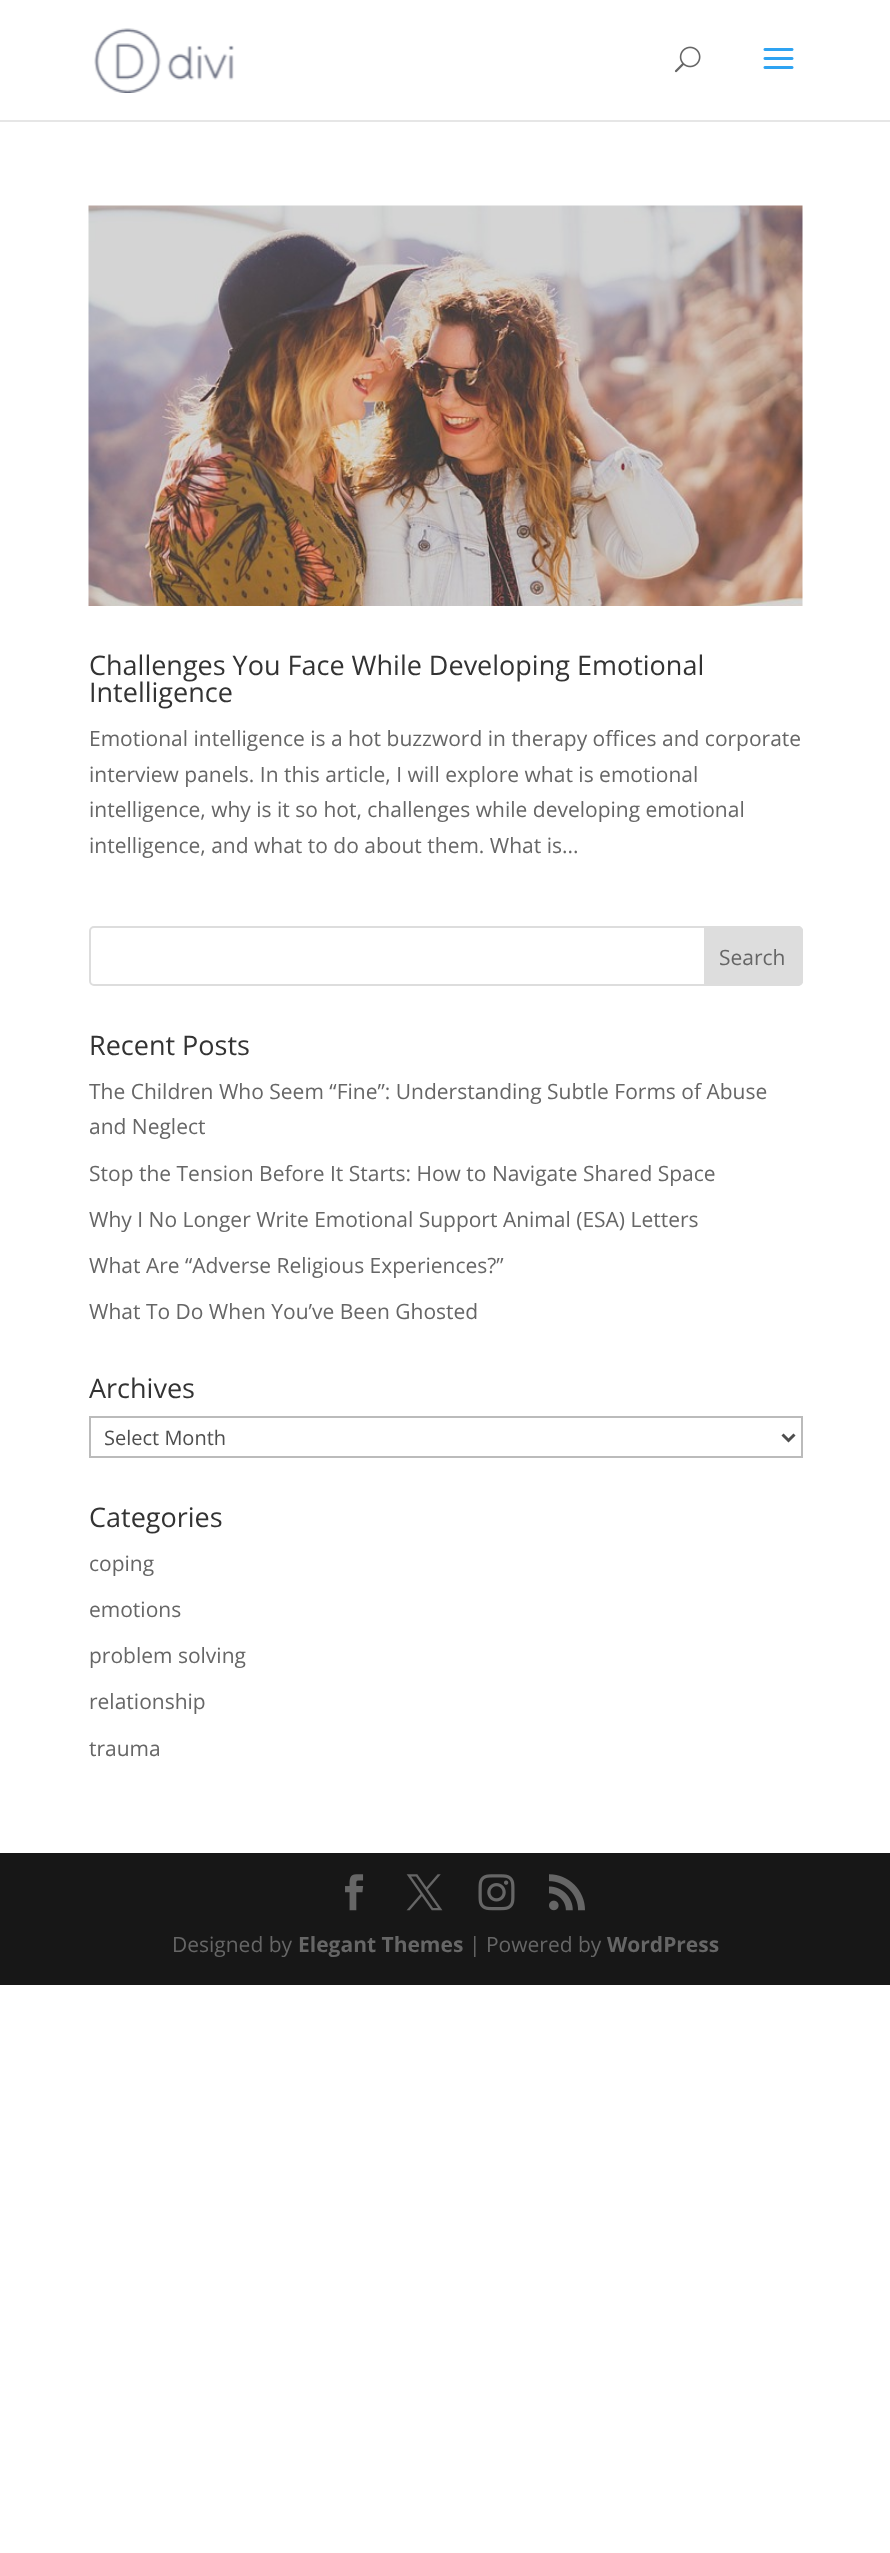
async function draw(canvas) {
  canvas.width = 890
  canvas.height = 2553
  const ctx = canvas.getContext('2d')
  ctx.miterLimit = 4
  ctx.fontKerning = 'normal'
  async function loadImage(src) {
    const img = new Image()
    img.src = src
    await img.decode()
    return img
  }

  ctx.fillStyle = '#fff'
  ctx.fillRect(0, 0, 890, 2553)
  ctx.fillStyle = '#e6e6e6'
  ctx.fillRect(0, 120, 890, 2)
  ctx.drawImage(await loadImage('image0.png'), 94, 28, 140, 65)
  ctx.drawImage(await loadImage('image1.png'), 674, 46, 27, 27)
  ctx.drawImage(await loadImage('image2.png'), 763, 48, 31, 21)
  ctx.drawImage(await loadImage('image3.png'), 88, 205, 715, 401)
  ctx.font = '27px Open Sans'
  ctx.fillStyle = '#333'
  ctx.fillText('Challenges You Face While Developing Emotional', 89, 675)
  ctx.fillText('Intelligence', 89, 702)
  ctx.font = '21px Open Sans'
  ctx.fillStyle = '#666'
  ctx.fillText('Emotional intelligence is a hot buzzword in therapy offices and corporate', 89, 746)
  ctx.fillText('interview panels. In this article, I will explore what is emotional', 89, 782)
  ctx.fillText('intelligence, why is it so hot, challenges while developing emotional', 89, 817)
  ctx.fillText('intelligence, and what to do about them. What is...', 89, 853)
  ctx.beginPath()
  ctx.roundRect(90, 927, 712, 58, 4)
  ctx.strokeStyle = '#ddd'
  ctx.lineWidth = 2
  ctx.stroke()
  ctx.fillStyle = '#ddd'
  ctx.beginPath()
  ctx.roundRect(705, 927, 97, 58, [0, 4, 4, 0])
  ctx.fill()
  ctx.stroke()
  ctx.fillStyle = '#666'
  ctx.fillText('Search', 719, 965)
  ctx.font = '27px Open Sans'
  ctx.fillStyle = '#333'
  ctx.fillText('Recent Posts', 89, 1055)
  ctx.font = '21px Open Sans'
  ctx.fillStyle = '#666'
  ctx.fillText('The Children Who Seem “Fine”: Understanding Subtle Forms of Abuse', 89, 1099)
  ctx.fillText('and Neglect', 89, 1134)
  ctx.fillText('Stop the Tension Before It Starts: How to Navigate Shared Space', 89, 1181)
  ctx.fillText('Why I No Longer Write Emotional Support Animal (ESA) Letters', 89, 1227)
  ctx.fillText('What Are “Adverse Religious Experiences?”', 89, 1273)
  ctx.fillText('What To Do When You’ve Been Ghosted', 89, 1319)
  ctx.font = '27px Open Sans'
  ctx.fillStyle = '#333'
  ctx.fillText('Archives', 89, 1398)
  ctx.strokeStyle = '#bbb'
  ctx.strokeRect(90, 1417, 712, 40)
  ctx.beginPath()
  ctx.moveTo(782.5, 1434.5)
  ctx.lineTo(788.5, 1440.5)
  ctx.lineTo(794.5, 1434.5)
  ctx.strokeStyle = '#4e4e4e'
  ctx.lineWidth = 3
  ctx.stroke()
  ctx.font = '20px Open Sans'
  ctx.fillStyle = '#4e4e4e'
  ctx.fillText('Select Month', 104, 1445)
  ctx.font = '27px Open Sans'
  ctx.fillStyle = '#333'
  ctx.fillText('Categories', 89, 1527)
  ctx.font = '21px Open Sans'
  ctx.fillStyle = '#666'
  ctx.fillText('coping', 89, 1571)
  ctx.fillText('emotions', 89, 1617)
  ctx.fillText('problem solving', 89, 1663)
  ctx.fillText('relationship', 89, 1709)
  ctx.fillText('trauma', 89, 1756)
  ctx.fillStyle = '#171717'
  ctx.fillRect(0, 1853, 890, 132)
  ctx.drawImage(await loadImage('image4.png'), 345, 1874, 19, 37)
  ctx.drawImage(await loadImage('image5.png'), 406, 1874, 37, 37)
  ctx.drawImage(await loadImage('image6.png'), 478, 1874, 37, 37)
  ctx.drawImage(await loadImage('image7.png'), 549, 1874, 36, 37)
  ctx.fillStyle = '#666'
  ctx.fillText('Designed by', 172, 1952)
  ctx.font = 'bold 21px Open Sans'
  ctx.fillText('Elegant Themes', 298, 1952)
  ctx.font = '21px Open Sans'
  ctx.fillText('| Powered by', 469, 1952)
  ctx.font = 'bold 21px Open Sans'
  ctx.fillText('WordPress', 607, 1952)
}

draw(document.querySelector('canvas'))
